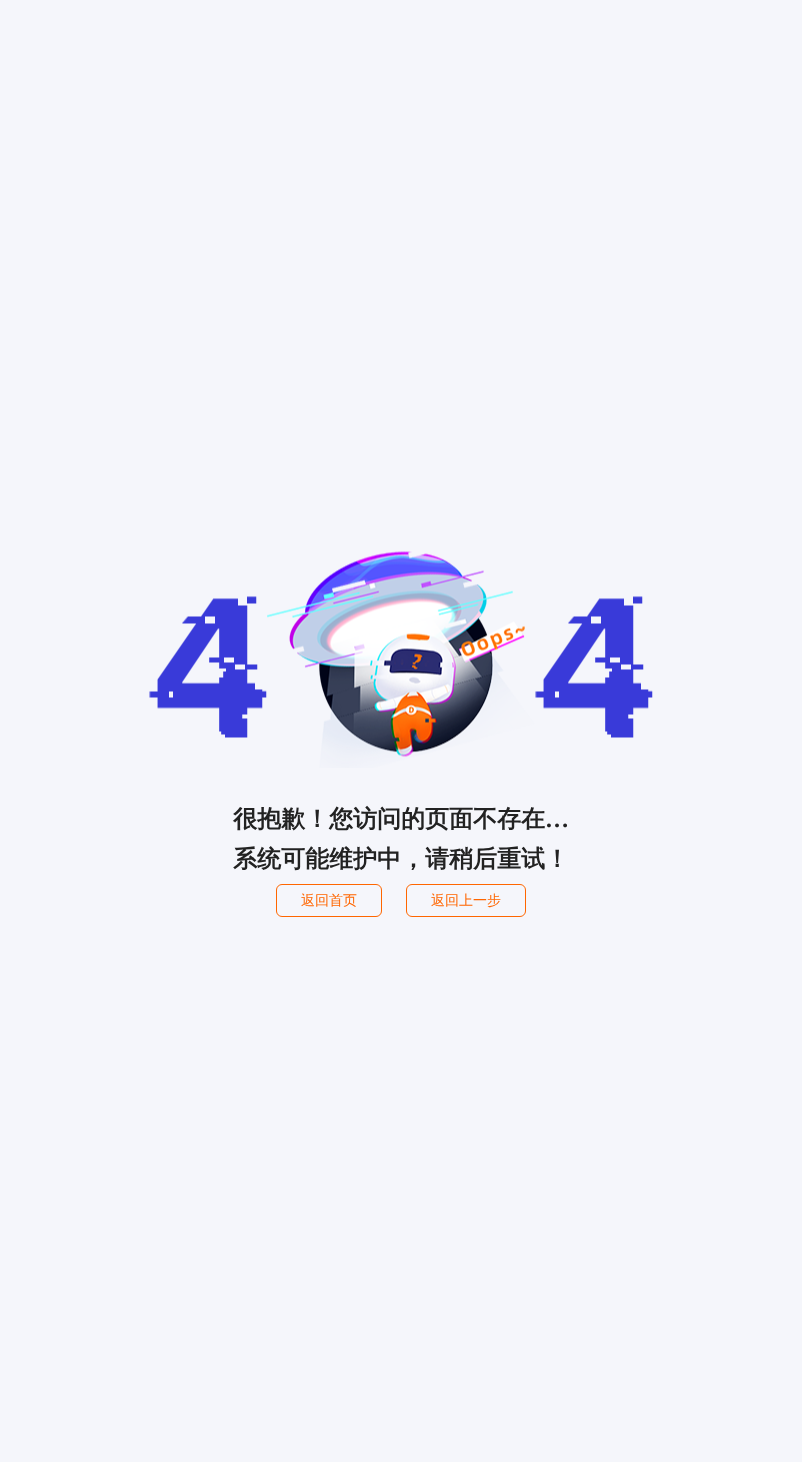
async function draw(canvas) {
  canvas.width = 802
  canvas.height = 1462
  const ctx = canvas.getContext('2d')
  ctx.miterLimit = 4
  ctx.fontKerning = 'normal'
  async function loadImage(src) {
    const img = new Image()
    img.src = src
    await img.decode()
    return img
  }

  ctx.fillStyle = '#f5f6fb'
  ctx.fillRect(0, 0, 802, 1462)
  ctx.drawImage(await loadImage('image0.png'), 149, 551, 504, 217)
  ctx.font = 'bold 24px WenQuanYi Zen Hei'
  ctx.fillStyle = '#222'
  ctx.fillText('很抱歉！您访问的页面不存在', 233, 827)
  ctx.font = 'bold 24px Liberation Serif'
  ctx.fillText('…', 545, 827)
  ctx.font = 'bold 24px WenQuanYi Zen Hei'
  ctx.fillText('系统可能维护中，请稍后重试！', 233, 867)
  ctx.beginPath()
  ctx.roundRect(276.5, 884.5, 105, 32, 5.5)
  ctx.strokeStyle = '#f60'
  ctx.stroke()
  ctx.font = '500 14px WenQuanYi Zen Hei'
  ctx.fillStyle = '#f60'
  ctx.fillText('返回首页', 301, 905)
  ctx.beginPath()
  ctx.roundRect(406.5, 884.5, 119, 32, 5.5)
  ctx.stroke()
  ctx.fillText('返回上一步', 431, 905)
}

draw(document.querySelector('canvas'))
